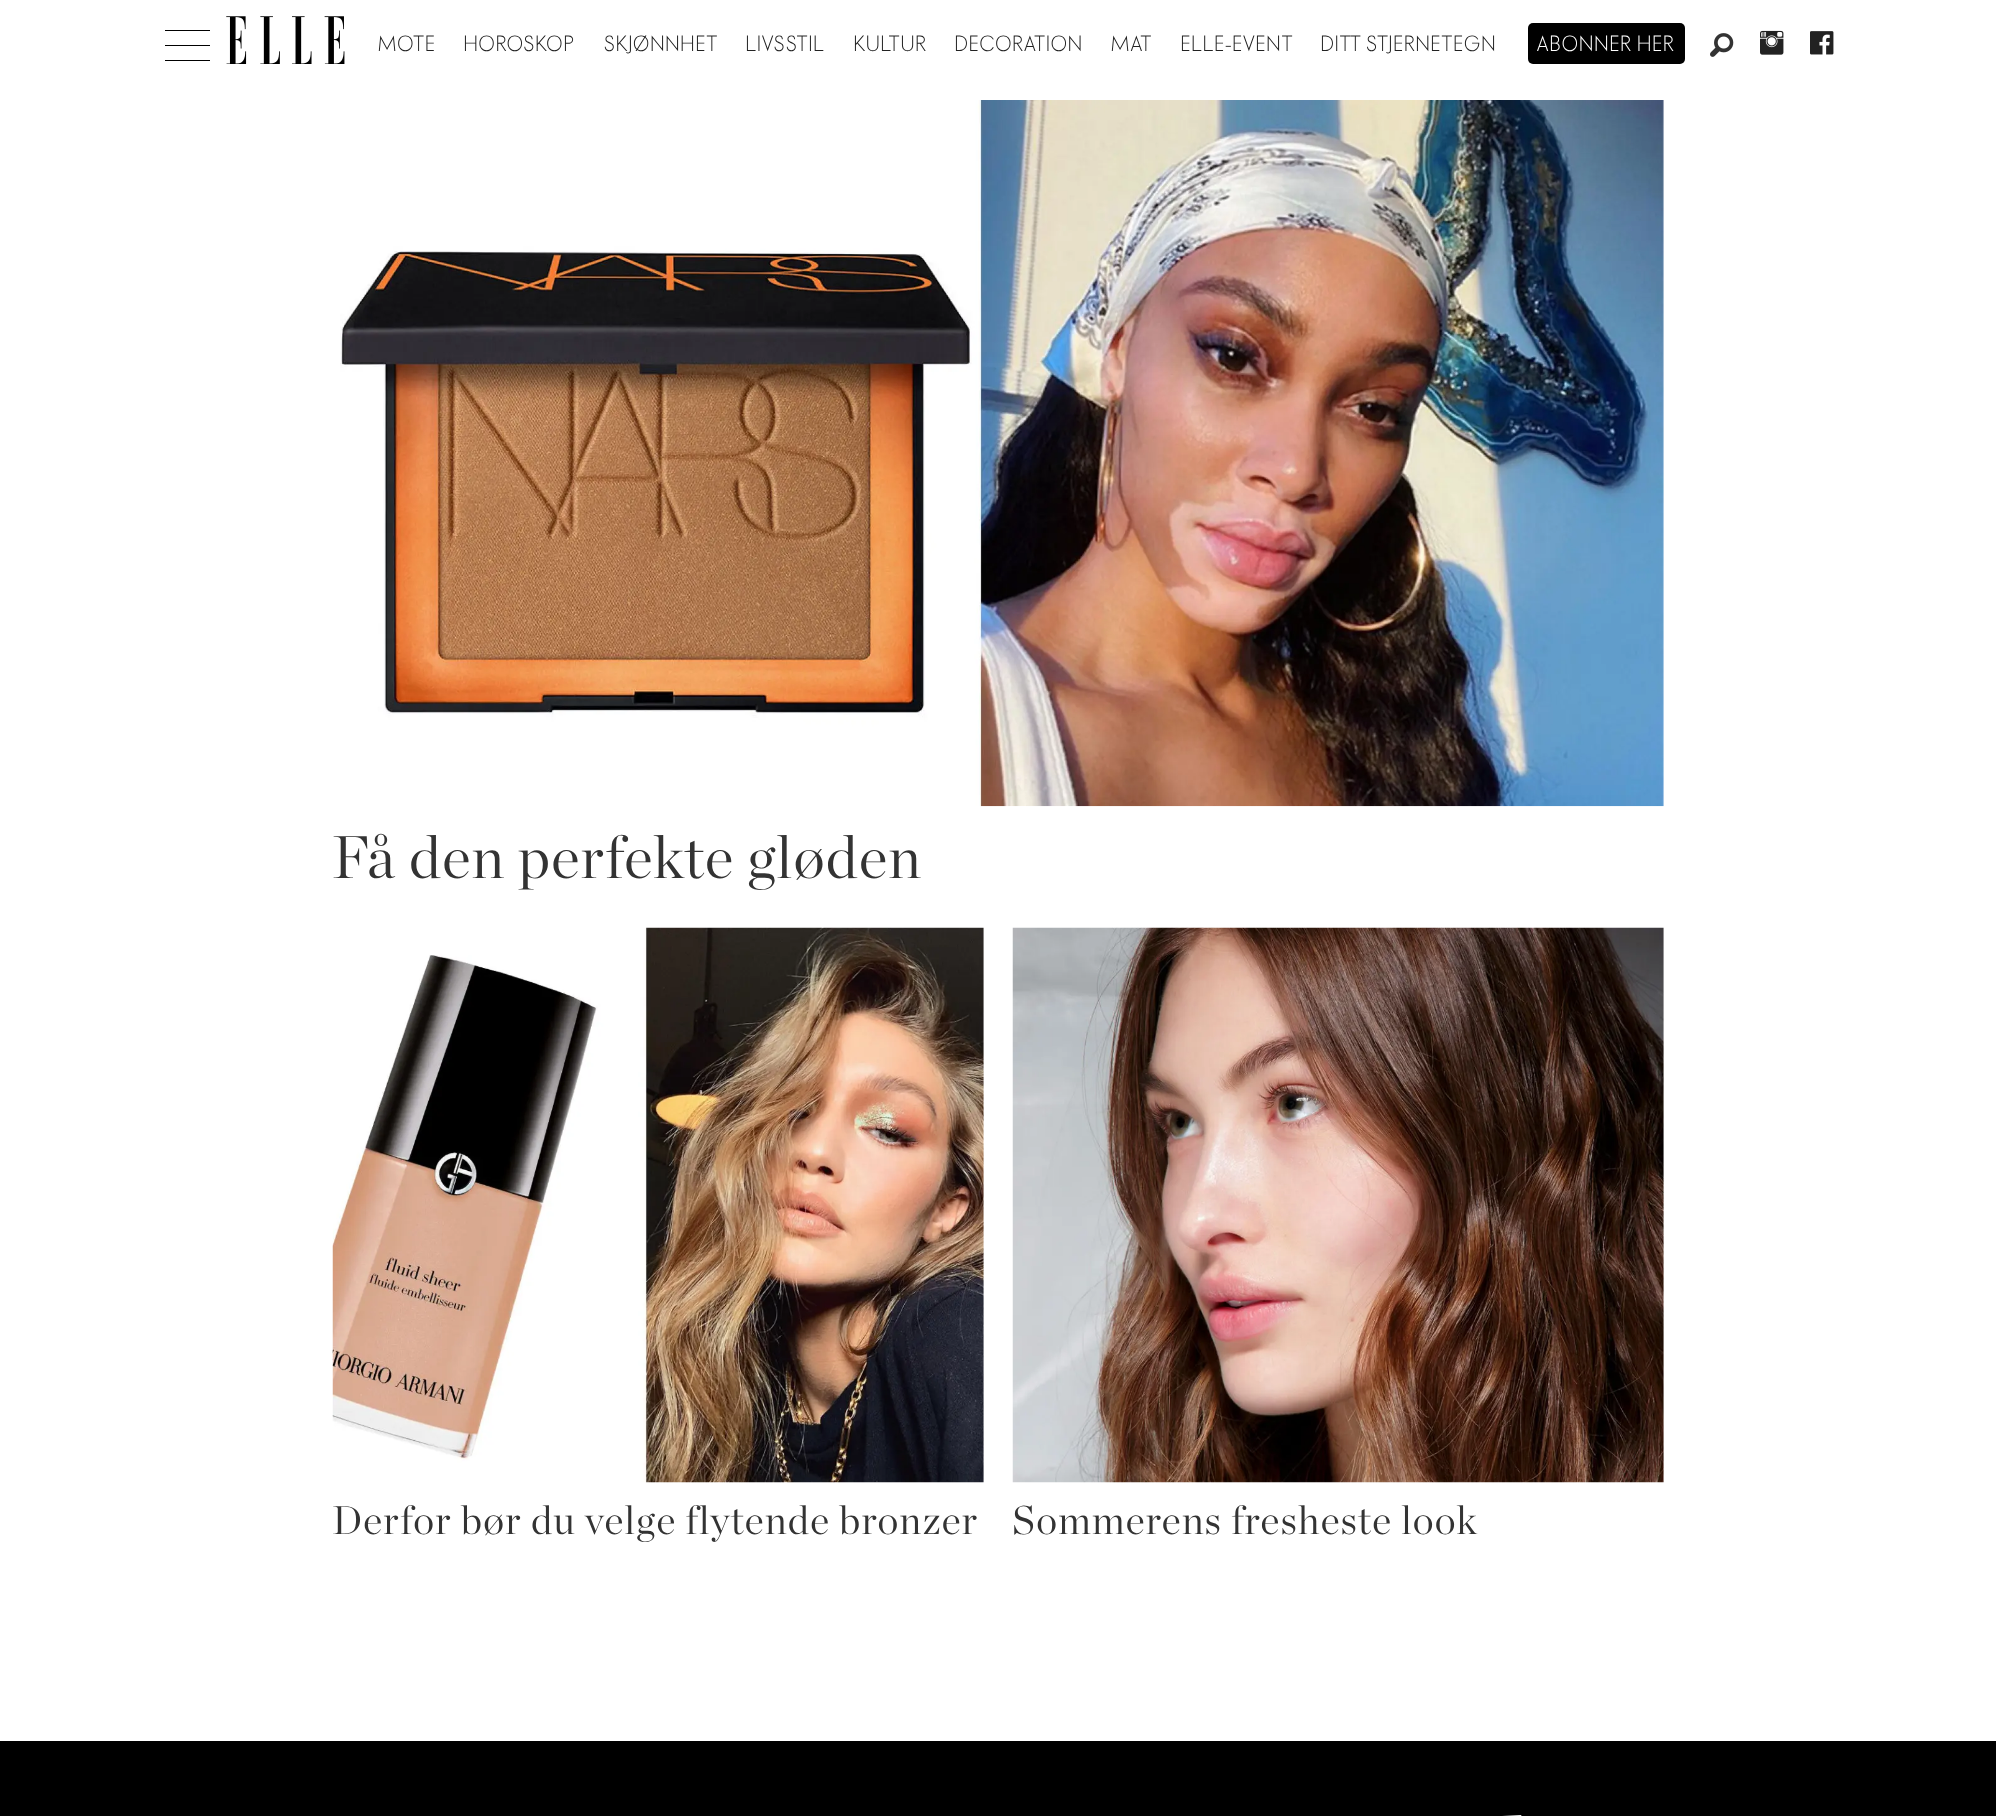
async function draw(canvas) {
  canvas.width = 1996
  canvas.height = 1816
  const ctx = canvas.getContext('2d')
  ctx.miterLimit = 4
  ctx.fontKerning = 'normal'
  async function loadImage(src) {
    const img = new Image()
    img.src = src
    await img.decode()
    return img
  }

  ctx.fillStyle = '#fff'
  ctx.fillRect(0, 0, 1996, 1816)
  ctx.fillStyle = '#000'
  ctx.fillRect(165, 45, 45, 1)
  ctx.fillRect(165, 30, 45, 1)
  ctx.fillRect(165, 60, 45, 1)
  ctx.drawImage(await loadImage('image0.png'), 226, 16, 119, 48)
  ctx.letterSpacing = '1.6px'
  ctx.font = '20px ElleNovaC'
  ctx.fillStyle = '#222'
  ctx.fillText('MOTE', 378, 51)
  ctx.fillText('HOROSKOP', 464, 51)
  ctx.fillText('SKJØNNHET', 604, 51)
  ctx.fillText('LIVSSTIL', 746, 51)
  ctx.fillText('KULTUR', 854, 51)
  ctx.fillText('DECORATION', 955, 51)
  ctx.fillText('MAT', 1111, 51)
  ctx.fillText('ELLE-EVENT', 1181, 51)
  ctx.fillText('DITT STJERNETEGN', 1321, 51)
  ctx.fillStyle = '#000'
  ctx.beginPath()
  ctx.roundRect(1528, 23, 157, 41, 5)
  ctx.fill()
  ctx.letterSpacing = '1.75px'
  ctx.fillStyle = '#fff'
  ctx.fillText('ABONNER HER', 1537, 51)
  ctx.drawImage(await loadImage('image1.png'), 1710, 33, 24, 24)
  ctx.drawImage(await loadImage('image2.png'), 1760, 30, 24, 25)
  ctx.drawImage(await loadImage('image3.png'), 1810, 31, 24, 24)
  ctx.drawImage(await loadImage('image4.png'), 340, 100, 1324, 707)
  ctx.letterSpacing = '1.25px'
  ctx.font = '300 60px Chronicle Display'
  ctx.fillStyle = '#333'
  ctx.fillText('Få den perfekte gløden', 332, 878)
  ctx.drawImage(await loadImage('image5.png'), 332, 927, 652, 556)
  ctx.font = '300 40px Chronicle Display'
  ctx.fillText('Derfor bør du velge flytende bronzer', 332, 1534)
  ctx.drawImage(await loadImage('image6.png'), 1012, 927, 652, 556)
  ctx.fillText('Sommerens fresheste look', 1012, 1534)
  ctx.fillStyle = '#000'
  ctx.fillRect(0, 1741, 1996, 75)
  ctx.drawImage(await loadImage('image7.png'), 1502, 1815, 20, 1)
}

draw(document.querySelector('canvas'))
